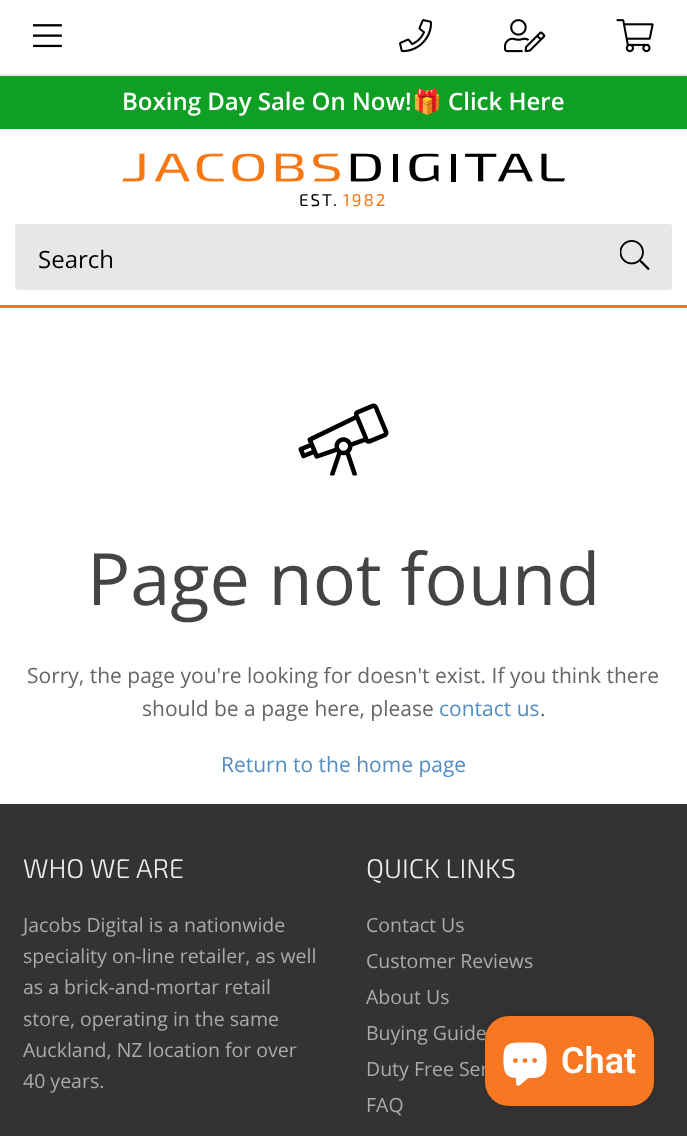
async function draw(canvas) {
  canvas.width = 687
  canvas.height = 1136
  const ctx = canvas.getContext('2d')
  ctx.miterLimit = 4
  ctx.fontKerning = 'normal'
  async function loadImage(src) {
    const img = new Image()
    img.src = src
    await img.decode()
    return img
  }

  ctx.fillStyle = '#fff'
  ctx.fillRect(0, 0, 687, 1136)
  ctx.fillStyle = '#e7e7e7'
  ctx.fillRect(0, 74, 687, 2)
  ctx.drawImage(await loadImage('image0.png'), 33, 24, 29, 24)
  ctx.drawImage(await loadImage('image1.png'), 399, 19, 34, 34)
  ctx.drawImage(await loadImage('image2.png'), 504, 19, 42, 34)
  ctx.drawImage(await loadImage('image3.png'), 616, 19, 38, 34)
  ctx.fillStyle = '#109f25'
  ctx.fillRect(0, 76, 687, 53)
  ctx.font = '600 24px Open Sans'
  ctx.fillStyle = '#fff'
  ctx.fillText('Boxing Day Sale On Now!', 122, 110)
  ctx.font = 'bold 24px Noto Color Emoji'
  ctx.fillText('🎁', 412, 110)
  ctx.font = '600 24px Open Sans'
  ctx.fillText('Click Here', 448, 110)
  ctx.drawImage(await loadImage('image4.png'), 122, 153, 443, 29)
  ctx.letterSpacing = '2px'
  ctx.font = '17px "Exo 2"'
  ctx.fillStyle = '#000'
  ctx.fillText('EST.', 299, 206)
  ctx.fillStyle = '#f77713'
  ctx.fillText('1982', 343, 206)
  ctx.fillRect(0, 305, 687, 3)
  ctx.fillStyle = '#e7e7e7'
  ctx.beginPath()
  ctx.roundRect(15, 224, 657, 66, 3)
  ctx.fill()
  ctx.letterSpacing = '0px'
  ctx.font = '24px Open Sans'
  ctx.fillStyle = '#000'
  ctx.fillText('Search', 38, 268)
  ctx.drawImage(await loadImage('image5.png'), 620, 240, 30, 30)
  ctx.drawImage(await loadImage('image6.png'), 298, 403, 91, 73)
  ctx.font = '72px Open Sans'
  ctx.fillStyle = '#444'
  ctx.fillText('Page not found', 87, 605)
  ctx.font = '21px Open Sans'
  ctx.fillStyle = '#666'
  ctx.fillText('Sorry, the page you\'re looking for doesn\'t exist. If you think there', 27, 683)
  ctx.fillText('should be a page here, please', 142, 716)
  ctx.fillStyle = '#528ec1'
  ctx.fillText('contact us', 439, 716)
  ctx.fillStyle = '#666'
  ctx.fillText('.', 540, 716)
  ctx.fillStyle = '#528ec1'
  ctx.fillText('Return to the home page', 221, 772)
  ctx.fillStyle = '#333'
  ctx.fillRect(0, 804, 687, 332)
  ctx.font = '300 27px "Exo 2"'
  ctx.fillStyle = '#eee'
  ctx.fillText('WHO WE ARE', 23, 878)
  ctx.font = '19.5px Open Sans'
  ctx.fillStyle = '#aaa'
  ctx.fillText('Jacobs Digital is a nationwide', 23, 932)
  ctx.fillText('speciality on-line retailer, as well', 23, 963)
  ctx.fillText('as a brick-and-mortar retail', 23, 994)
  ctx.fillText('store, operating in the same', 23, 1026)
  ctx.fillText('Auckland, NZ location for over', 23, 1057)
  ctx.fillText('40 years.', 23, 1088)
  ctx.font = '300 27px "Exo 2"'
  ctx.fillStyle = '#eee'
  ctx.fillText('QUICK LINKS', 366, 878)
  ctx.font = '19.5px Open Sans'
  ctx.fillStyle = '#aaa'
  ctx.fillText('Contact Us', 366, 932)
  ctx.fillText('Customer Reviews', 366, 968)
  ctx.fillText('About Us', 366, 1004)
  ctx.fillText('Buying Guide', 366, 1040)
  ctx.fillText('Duty Free Ser', 366, 1076)
  ctx.fillText('FAQ', 366, 1112)
  ctx.fillStyle = '#00000026'
  ctx.filter = 'blur(4px)'
  ctx.beginPath()
  ctx.roundRect(485, 1016, 169, 90, 24)
  ctx.fill()
  ctx.filter = 'none'
  ctx.fillStyle = '#f77722'
  ctx.beginPath()
  ctx.roundRect(485, 1016, 169, 90, 24)
  ctx.fill()
  ctx.drawImage(await loadImage('image7.png'), 503, 1042, 44, 44)
  ctx.font = '600 36px Roboto'
  ctx.fillStyle = '#fff'
  ctx.fillText('Chat', 561, 1073)
}

draw(document.querySelector('canvas'))
